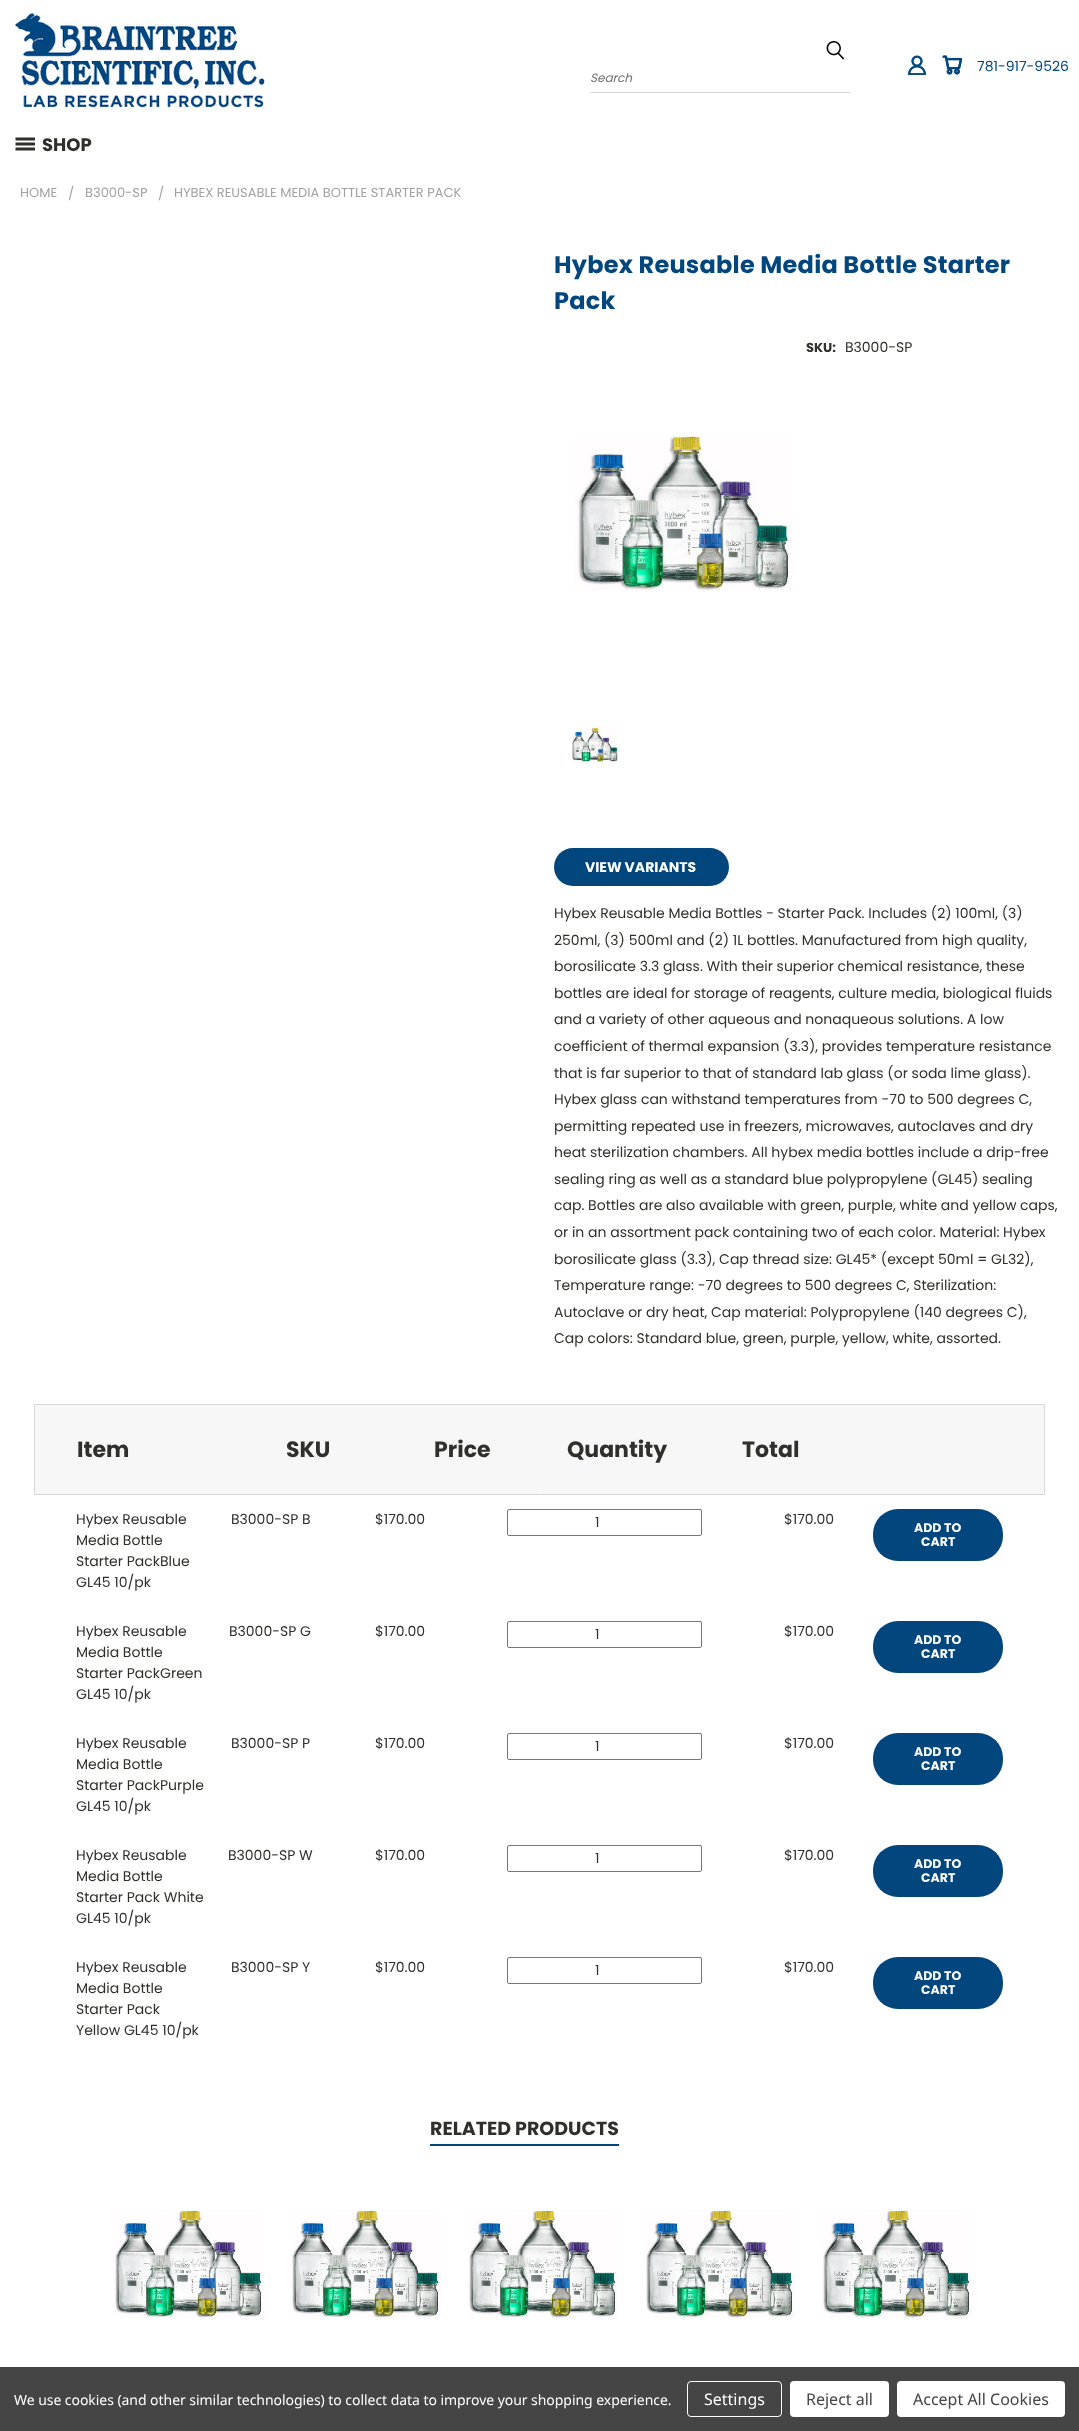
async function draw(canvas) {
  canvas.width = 1079
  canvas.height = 2431
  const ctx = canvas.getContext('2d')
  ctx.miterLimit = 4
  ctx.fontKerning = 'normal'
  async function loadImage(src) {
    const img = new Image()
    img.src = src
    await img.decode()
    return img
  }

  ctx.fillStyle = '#fff'
  ctx.fillRect(0, 0, 1079, 2431)
  ctx.drawImage(await loadImage('image0.png'), 15, 13, 250, 95)
  ctx.drawImage(await loadImage('image1.png'), 908, 55, 18, 20)
  ctx.drawImage(await loadImage('image2.png'), 942, 55, 20, 20)
  ctx.font = '14px Poppins'
  ctx.fillStyle = '#02467e'
  ctx.fillText('781-917-9526', 977, 71)
  ctx.drawImage(await loadImage('image3.png'), 826, 41, 18, 19)
  ctx.fillStyle = '#d7d7d7'
  ctx.fillRect(590, 92, 261, 1)
  ctx.font = 'italic 12px Poppins'
  ctx.fillStyle = '#70706e'
  ctx.fillText('Search', 590, 82)
  ctx.drawImage(await loadImage('image4.png'), 15, 137, 20, 14)
  ctx.font = 'bold 18px Poppins'
  ctx.fillStyle = '#2f2f2b'
  ctx.fillText('SHOP', 42, 151)
  ctx.font = '13px Poppins'
  ctx.fillStyle = '#a2a2a2'
  ctx.fillText('HOME', 20, 197)
  ctx.fillText('/', 68, 198)
  ctx.fillText('B3000-SP', 85, 197)
  ctx.fillText('/', 158, 198)
  ctx.fillText('HYBEX REUSABLE MEDIA BOTTLE STARTER PACK', 174, 197)
  ctx.letterSpacing = '0.25px'
  ctx.font = 'bold 24px Poppins'
  ctx.fillStyle = '#02467e'
  ctx.fillText('Hybex Reusable Media Bottle Starter', 554, 273)
  ctx.fillText('Pack', 554, 309)
  ctx.letterSpacing = '0px'
  ctx.font = 'bold 13px Poppins'
  ctx.fillStyle = '#2f2f2b'
  ctx.fillText('SKU:', 806, 352)
  ctx.font = '14px Poppins'
  ctx.fillText('B3000-SP', 845, 352)
  ctx.drawImage(await loadImage('image5.png'), 574, 436, 218, 156)
  ctx.drawImage(await loadImage('image6.png'), 570, 726, 48, 39)
  ctx.fillStyle = '#02467e'
  ctx.beginPath()
  ctx.roundRect(554, 848, 175, 38, 19)
  ctx.fill()
  ctx.font = 'bold 14px Poppins'
  ctx.fillStyle = '#fff'
  ctx.fillText('VIEW VARIANTS', 585, 872)
  ctx.font = '14px Poppins'
  ctx.fillStyle = '#2f2f2b'
  ctx.fillText('Hybex Reusable Media Bottles - Starter Pack. Includes (2) 100ml, (3)', 554, 918)
  ctx.fillText('250ml, (3) 500ml and (2) 1L bottles. Manufactured from high quality,', 554, 945)
  ctx.fillText('borosilicate 3.3 glass. With their superior chemical resistance, these', 554, 971)
  ctx.fillText('bottles are ideal for storage of reagents, culture media, biological fluids', 554, 998)
  ctx.fillText('and a variety of other aqueous and nonaqueous solutions. A low', 554, 1024)
  ctx.fillText('coefficient of thermal expansion (3.3), provides temperature resistance', 554, 1051)
  ctx.fillText('that is far superior to that of standard lab glass (or soda lime glass).', 554, 1078)
  ctx.fillText('Hybex glass can withstand temperatures from -70 to 500 degrees C,', 554, 1104)
  ctx.fillText('permitting repeated use in freezers, microwaves, autoclaves and dry', 554, 1131)
  ctx.fillText('heat sterilization chambers. All hybex media bottles include a drip-free', 554, 1157)
  ctx.fillText('sealing ring as well as a standard blue polypropylene (GL45) sealing', 554, 1184)
  ctx.fillText('cap. Bottles are also available with green, purple, white and yellow caps,', 554, 1210)
  ctx.fillText('or in an assortment pack containing two of each color. Material: Hybex', 554, 1237)
  ctx.fillText('borosilicate glass (3.3), Cap thread size: GL45* (except 50ml = GL32),', 554, 1264)
  ctx.fillText('Temperature range: -70 degrees to 500 degrees C, Sterilization:', 554, 1290)
  ctx.fillText('Autoclave or dry heat, Cap material: Polypropylene (140 degrees C),', 554, 1317)
  ctx.fillText('Cap colors: Standard blue, green, purple, yellow, white, assorted.', 554, 1343)
  ctx.fillStyle = '#f7f7f7'
  ctx.beginPath()
  ctx.rect(34.5, 1404.5, 1010, 90)
  ctx.fill()
  ctx.strokeStyle = '#d7d7d7'
  ctx.stroke()
  ctx.font = 'bold 22px Poppins'
  ctx.fillStyle = '#2f2f2b'
  ctx.fillText('Item', 77, 1457)
  ctx.fillText('SKU', 286, 1457)
  ctx.fillText('Price', 434, 1457)
  ctx.fillText('Quantity', 567, 1457)
  ctx.fillText('Total', 742, 1457)
  ctx.font = '14px Poppins'
  ctx.fillText('Hybex Reusable', 76, 1524)
  ctx.fillText('Media Bottle', 76, 1545)
  ctx.fillText('Starter PackBlue', 76, 1566)
  ctx.fillText('GL45 10/pk', 76, 1587)
  ctx.fillText('B3000-SP B', 231, 1524)
  ctx.fillText('$170.00', 375, 1524)
  ctx.beginPath()
  ctx.roundRect(507.5, 1509.5, 194, 26, 1.5)
  ctx.strokeStyle = '#767676'
  ctx.stroke()
  ctx.fillText('1', 595, 1527)
  ctx.fillText('$170.00', 784, 1524)
  ctx.fillStyle = '#02467e'
  ctx.beginPath()
  ctx.roundRect(873, 1509, 130, 52, 25)
  ctx.fill()
  ctx.font = 'bold 12.5px Poppins'
  ctx.fillStyle = '#fff'
  ctx.fillText('ADD TO', 914, 1532)
  ctx.fillText('CART', 921, 1546)
  ctx.font = '14px Poppins'
  ctx.fillStyle = '#2f2f2b'
  ctx.fillText('Hybex Reusable', 76, 1636)
  ctx.fillText('Media Bottle', 76, 1657)
  ctx.fillText('Starter PackGreen', 76, 1678)
  ctx.fillText('GL45 10/pk', 76, 1699)
  ctx.fillText('B3000-SP G', 229, 1636)
  ctx.fillText('$170.00', 375, 1636)
  ctx.beginPath()
  ctx.roundRect(507.5, 1621.5, 194, 26, 1.5)
  ctx.stroke()
  ctx.fillText('1', 595, 1639)
  ctx.fillText('$170.00', 784, 1636)
  ctx.fillStyle = '#02467e'
  ctx.beginPath()
  ctx.roundRect(873, 1621, 130, 52, 25)
  ctx.fill()
  ctx.font = 'bold 12.5px Poppins'
  ctx.fillStyle = '#fff'
  ctx.fillText('ADD TO', 914, 1644)
  ctx.fillText('CART', 921, 1658)
  ctx.font = '14px Poppins'
  ctx.fillStyle = '#2f2f2b'
  ctx.fillText('Hybex Reusable', 76, 1748)
  ctx.fillText('Media Bottle', 76, 1769)
  ctx.fillText('Starter PackPurple', 76, 1790)
  ctx.fillText('GL45 10/pk', 76, 1811)
  ctx.fillText('B3000-SP P', 231, 1748)
  ctx.fillText('$170.00', 375, 1748)
  ctx.beginPath()
  ctx.roundRect(507.5, 1733.5, 194, 26, 1.5)
  ctx.stroke()
  ctx.fillText('1', 595, 1751)
  ctx.fillText('$170.00', 784, 1748)
  ctx.fillStyle = '#02467e'
  ctx.beginPath()
  ctx.roundRect(873, 1733, 130, 52, 25)
  ctx.fill()
  ctx.font = 'bold 12.5px Poppins'
  ctx.fillStyle = '#fff'
  ctx.fillText('ADD TO', 914, 1756)
  ctx.fillText('CART', 921, 1770)
  ctx.font = '14px Poppins'
  ctx.fillStyle = '#2f2f2b'
  ctx.fillText('Hybex Reusable', 76, 1860)
  ctx.fillText('Media Bottle', 76, 1881)
  ctx.fillText('Starter Pack White', 76, 1902)
  ctx.fillText('GL45 10/pk', 76, 1923)
  ctx.fillText('B3000-SP W', 228, 1860)
  ctx.fillText('$170.00', 375, 1860)
  ctx.beginPath()
  ctx.roundRect(507.5, 1845.5, 194, 26, 1.5)
  ctx.stroke()
  ctx.fillText('1', 595, 1863)
  ctx.fillText('$170.00', 784, 1860)
  ctx.fillStyle = '#02467e'
  ctx.beginPath()
  ctx.roundRect(873, 1845, 130, 52, 25)
  ctx.fill()
  ctx.font = 'bold 12.5px Poppins'
  ctx.fillStyle = '#fff'
  ctx.fillText('ADD TO', 914, 1868)
  ctx.fillText('CART', 921, 1882)
  ctx.font = '14px Poppins'
  ctx.fillStyle = '#2f2f2b'
  ctx.fillText('Hybex Reusable', 76, 1972)
  ctx.fillText('Media Bottle', 76, 1993)
  ctx.fillText('Starter Pack', 76, 2014)
  ctx.fillText('Yellow GL45 10/pk', 76, 2035)
  ctx.fillText('B3000-SP Y', 231, 1972)
  ctx.fillText('$170.00', 375, 1972)
  ctx.beginPath()
  ctx.roundRect(507.5, 1957.5, 194, 26, 1.5)
  ctx.stroke()
  ctx.fillText('1', 595, 1975)
  ctx.fillText('$170.00', 784, 1972)
  ctx.fillStyle = '#02467e'
  ctx.beginPath()
  ctx.roundRect(873, 1957, 130, 52, 25)
  ctx.fill()
  ctx.font = 'bold 12.5px Poppins'
  ctx.fillStyle = '#fff'
  ctx.fillText('ADD TO', 914, 1980)
  ctx.fillText('CART', 921, 1994)
  ctx.fillStyle = '#02467e'
  ctx.fillRect(430, 2144, 189, 2)
  ctx.font = 'bold 19px Poppins'
  ctx.fillStyle = '#2f2f2b'
  ctx.fillText('RELATED PRODUCTS', 430, 2135)
  ctx.drawImage(await loadImage('image7.png'), 114, 2210, 150, 108)
  ctx.font = 'italic 12px Poppins'
  ctx.fillStyle = '#d5d7d6'
  ctx.fillText('Quick View', 153, 2267)
  ctx.drawImage(await loadImage('image8.png'), 291, 2210, 150, 108)
  ctx.fillText('Quick View', 330, 2267)
  ctx.drawImage(await loadImage('image8.png'), 468, 2210, 150, 108)
  ctx.fillText('Quick View', 507, 2267)
  ctx.drawImage(await loadImage('image9.png'), 645, 2210, 150, 108)
  ctx.fillText('Quick View', 684, 2267)
  ctx.drawImage(await loadImage('image8.png'), 822, 2210, 150, 108)
  ctx.fillText('Quick View', 861, 2267)
  ctx.fillStyle = '#454545'
  ctx.fillRect(0, 2367, 1079, 64)
  ctx.letterSpacing = '-0.05px'
  ctx.font = '14px Noto Sans'
  ctx.fillStyle = '#fff'
  ctx.fillText('We use cookies (and other similar technologies) to collect data to improve your shopping experience.', 14, 2405)
  ctx.beginPath()
  ctx.roundRect(687.5, 2381.5, 94, 35, 3.5)
  ctx.strokeStyle = '#fff'
  ctx.stroke()
  ctx.letterSpacing = '0px'
  ctx.font = '16px Noto Sans'
  ctx.fillText('Settings', 704, 2405)
  ctx.beginPath()
  ctx.roundRect(790, 2381, 99, 36, 4)
  ctx.fill()
  ctx.fillStyle = '#454545'
  ctx.fillText('Reject all', 806, 2405)
  ctx.fillStyle = '#fff'
  ctx.beginPath()
  ctx.roundRect(897, 2381, 168, 36, 4)
  ctx.fill()
  ctx.fillStyle = '#454545'
  ctx.fillText('Accept All Cookies', 913, 2405)
}

draw(document.querySelector('canvas'))
